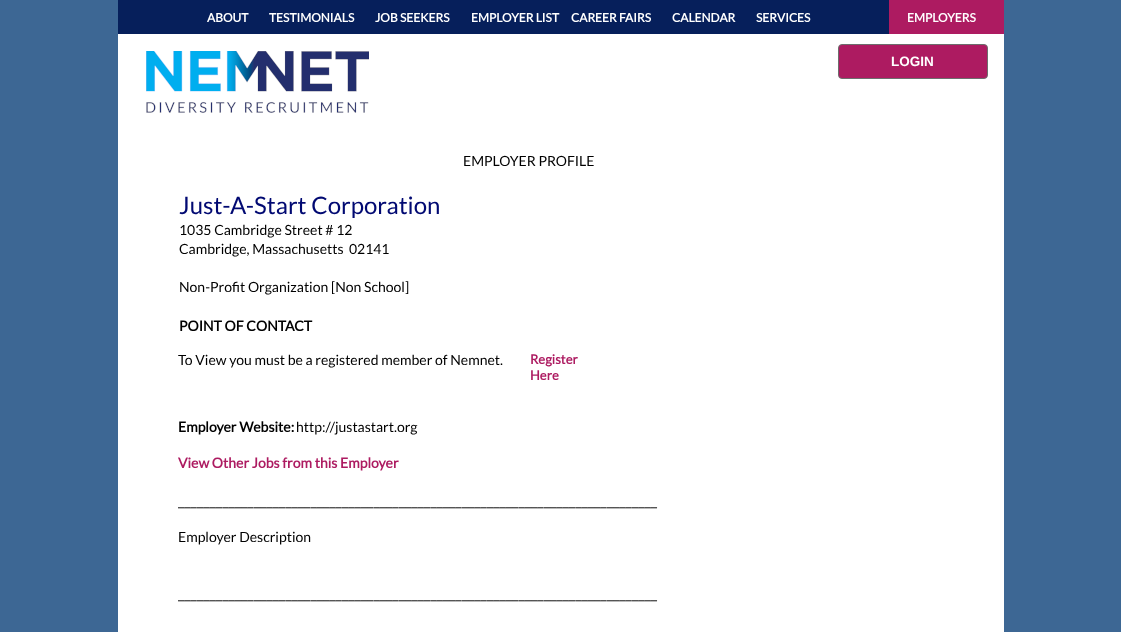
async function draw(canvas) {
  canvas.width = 1121
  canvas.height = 632
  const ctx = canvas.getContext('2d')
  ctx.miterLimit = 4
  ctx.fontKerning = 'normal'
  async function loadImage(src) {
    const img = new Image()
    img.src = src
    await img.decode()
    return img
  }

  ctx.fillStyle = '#3d6794'
  ctx.fillRect(0, 0, 1121, 632)
  ctx.fillStyle = '#fff'
  ctx.fillRect(118, 34, 886, 598)
  ctx.fillStyle = '#061f5b'
  ctx.fillRect(118, 0, 771, 34)
  ctx.font = 'bold 12px Lato'
  ctx.fillStyle = '#fff'
  ctx.fillText('ABOUT', 207, 22)
  ctx.fillText('TESTIMONIALS', 269, 22)
  ctx.fillText('JOB SEEKERS', 375, 22)
  ctx.fillText('EMPLOYER LIST', 471, 22)
  ctx.fillText('CAREER FAIRS', 571, 22)
  ctx.fillText('CALENDAR', 672, 22)
  ctx.fillText('SERVICES', 756, 22)
  ctx.fillStyle = '#ad1b61'
  ctx.fillRect(889, 0, 115, 34)
  ctx.fillStyle = '#fff'
  ctx.fillText('EMPLOYERS', 907, 22)
  ctx.drawImage(await loadImage('image0.png'), 146, 51, 223, 62)
  ctx.fillStyle = '#ad1b61'
  ctx.beginPath()
  ctx.roundRect(838.5, 44.5, 149, 34, 3.5)
  ctx.fill()
  ctx.strokeStyle = '#6d6d6d'
  ctx.stroke()
  ctx.font = 'bold 13.5px Liberation Sans'
  ctx.fillStyle = '#fff'
  ctx.fillText('LOGIN', 891, 66)
  ctx.font = '14px Lato'
  ctx.fillStyle = '#000'
  ctx.fillText('EMPLOYER PROFILE', 463, 166)
  ctx.font = '24px Lato'
  ctx.fillStyle = '#010972'
  ctx.fillText('Just-A-Start Corporation', 179, 214)
  ctx.font = '14px Lato'
  ctx.fillStyle = '#000'
  ctx.fillText('1035 Cambridge Street # 12', 179, 235)
  ctx.fillText('Cambridge, Massachusetts  02141', 179, 254)
  ctx.fillText('Non-Profit Organization [Non School]', 179, 292)
  ctx.font = 'bold 14px Lato'
  ctx.fillText('POINT OF CONTACT', 179, 331)
  ctx.font = '14px Lato'
  ctx.fillText('To View you must be a registered member of Nemnet.', 178, 365)
  ctx.font = 'bold 13px Lato'
  ctx.fillStyle = '#ad1b61'
  ctx.fillText('Register', 530, 364)
  ctx.fillText('Here', 530, 380)
  ctx.font = 'bold 14px Lato'
  ctx.fillStyle = '#000'
  ctx.fillText('Employer Website:', 178, 432)
  ctx.font = '14px Lato'
  ctx.fillText('http://justastart.org', 296, 432)
  ctx.font = 'bold 14px Lato'
  ctx.fillStyle = '#ad1b61'
  ctx.fillText('View Other Jobs from this Employer', 178, 468)
  ctx.font = '16px Lato'
  ctx.fillStyle = '#000'
  ctx.fillText('____________________________________________________________________________', 178, 506)
  ctx.font = '14px Lato'
  ctx.fillText('Employer Description', 178, 542)
  ctx.font = '16px Lato'
  ctx.fillText('____________________________________________________________________________', 178, 599)
}

draw(document.querySelector('canvas'))
